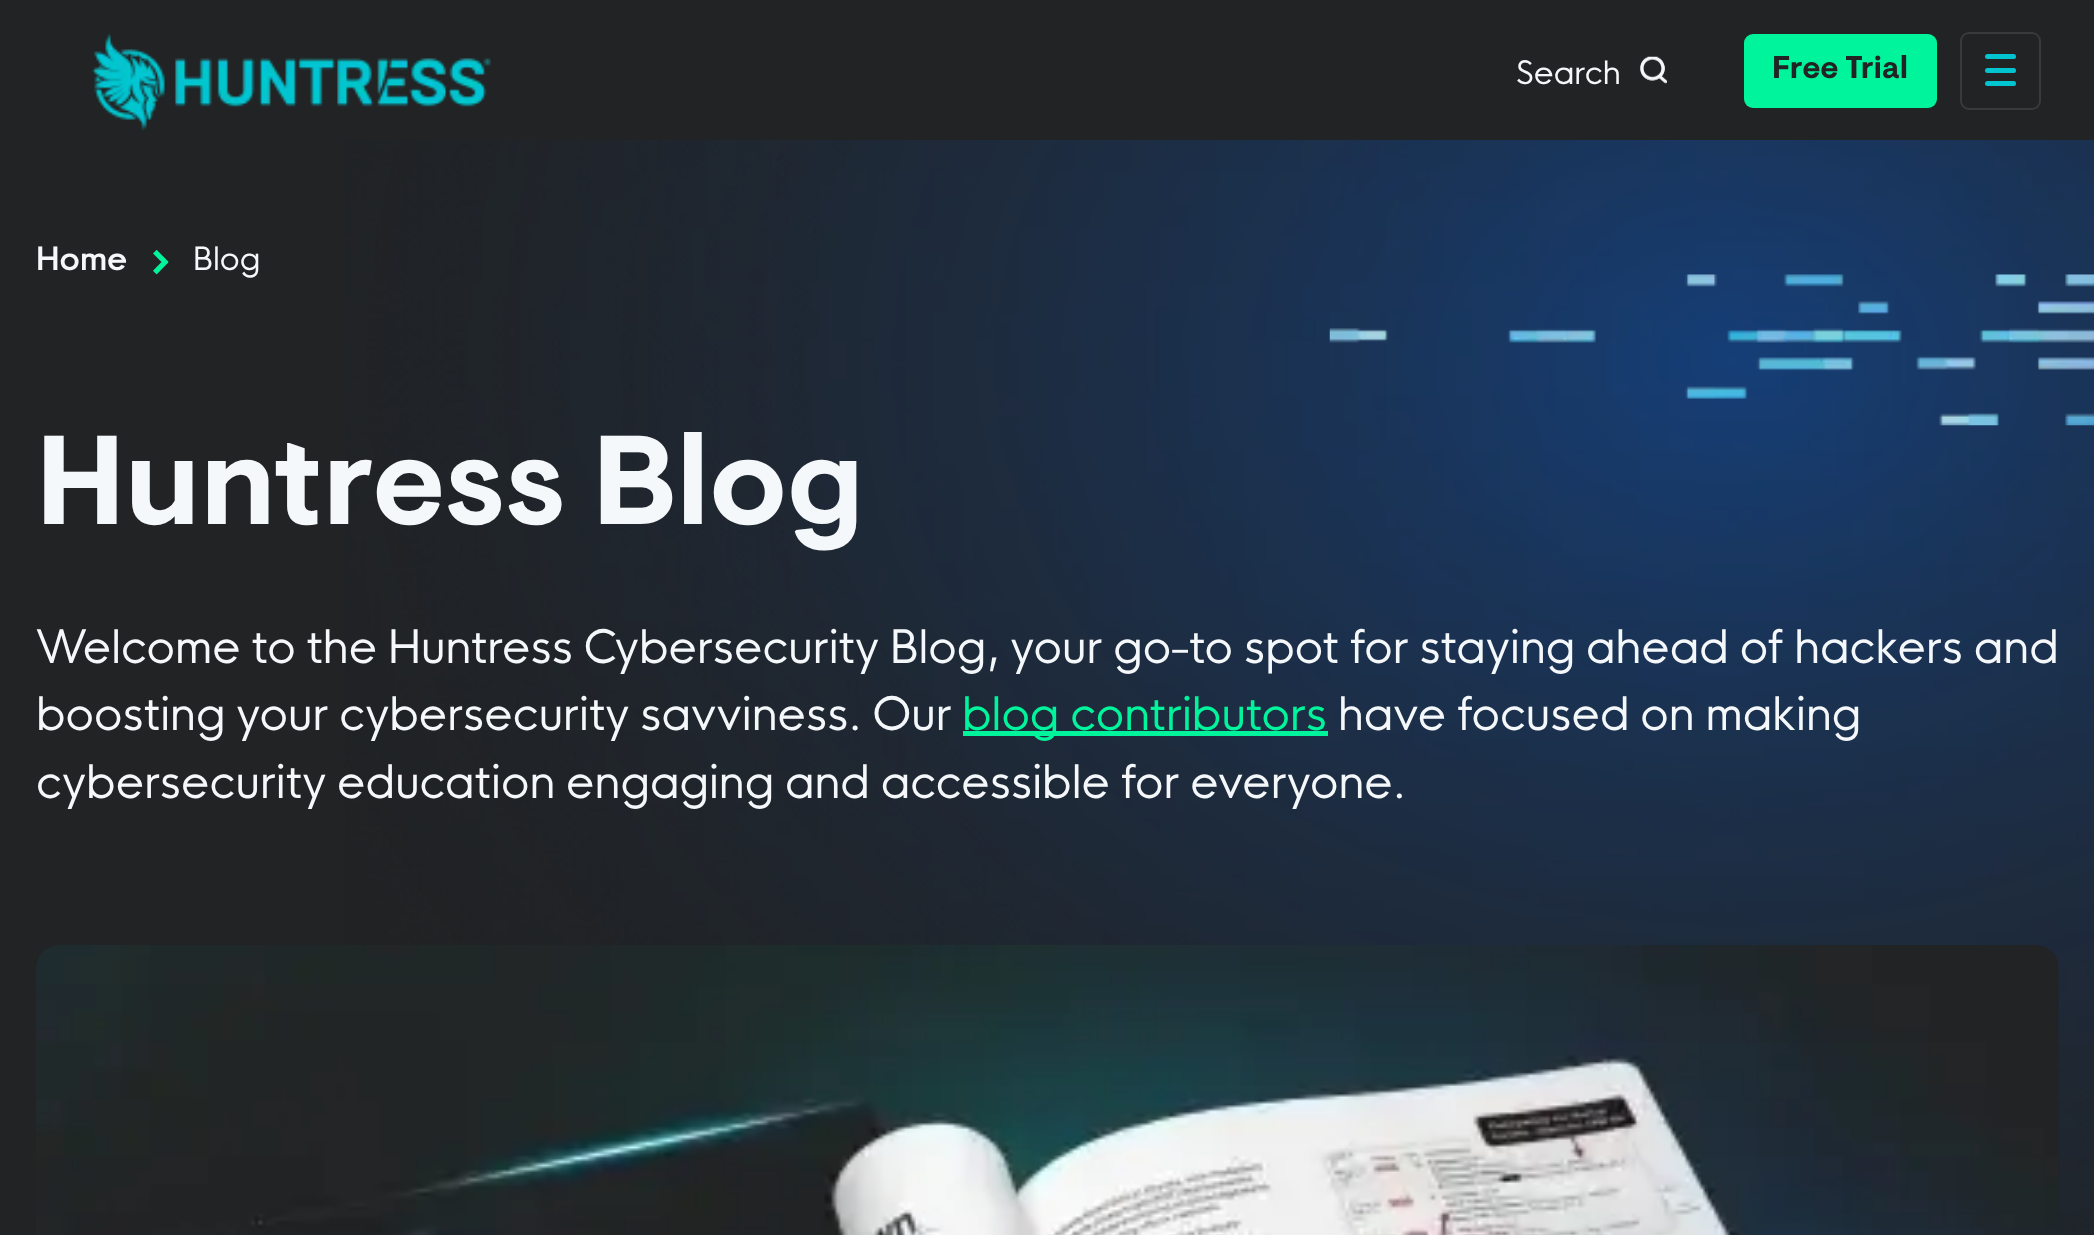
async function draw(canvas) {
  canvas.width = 2094
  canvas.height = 1235
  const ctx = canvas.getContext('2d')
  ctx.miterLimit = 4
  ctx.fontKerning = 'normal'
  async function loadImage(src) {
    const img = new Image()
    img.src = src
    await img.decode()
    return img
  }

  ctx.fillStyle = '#222324'
  ctx.fillRect(0, 0, 2094, 1235)
  ctx.drawImage(await loadImage('image0.png'), 91, 33, 400, 98)
  ctx.font = '31.5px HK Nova'
  ctx.fillStyle = '#f5f8fa'
  ctx.fillText('Search', 1516, 84)
  ctx.drawImage(await loadImage('image1.png'), 1640, 56, 27, 28)
  ctx.fillStyle = '#00f49c'
  ctx.beginPath()
  ctx.roundRect(1744, 34, 193, 74, 9)
  ctx.fill()
  ctx.font = 'bold 31.5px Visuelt'
  ctx.fillStyle = '#222324'
  ctx.fillText('Free Trial', 1772, 78)
  ctx.beginPath()
  ctx.roundRect(1961, 33, 79, 76, 8)
  ctx.strokeStyle = '#393a3b'
  ctx.lineWidth = 2
  ctx.stroke()
  ctx.fillStyle = '#00c5d1'
  ctx.beginPath()
  ctx.roundRect(1985, 54, 31, 5, 2.5)
  ctx.fill()
  ctx.beginPath()
  ctx.roundRect(1985, 68, 31, 5, 2.5)
  ctx.fill()
  ctx.beginPath()
  ctx.roundRect(1985, 81, 31, 5, 2.5)
  ctx.fill()
  ctx.drawImage(await loadImage('image2.png'), 344, 140, 1750, 1095)
  ctx.font = '600 31.5px HK Nova'
  ctx.fillStyle = '#f5f8fa'
  ctx.fillText('Home', 36, 270)
  ctx.drawImage(await loadImage('image3.png'), 153, 250, 16, 25)
  ctx.font = '31.5px HK Nova'
  ctx.fillText('Blog', 193, 270)
  ctx.font = 'bold 126px Visuelt'
  ctx.fillText('Huntress Blog', 36, 524)
  ctx.font = '45px HK Nova'
  ctx.fillText('Welcome to the Huntress Cybersecurity Blog, your go-to spot for staying ahead of hackers and', 36, 663)
  ctx.fillText('boosting your cybersecurity savviness. Our', 36, 730)
  ctx.fillStyle = '#00f49c'
  ctx.fillRect(963, 731, 365, 5)
  ctx.fillText('blog contributors', 962, 730)
  ctx.fillStyle = '#f5f8fa'
  ctx.fillText('have focused on making', 1338, 730)
  ctx.fillText('cybersecurity education engaging and accessible for everyone.', 36, 798)
  ctx.drawImage(await loadImage('image4.png'), 36, 945, 2023, 290)
  ctx.drawImage(await loadImage('image5.png'), 1329, 274, 765, 152)
}

draw(document.querySelector('canvas'))
